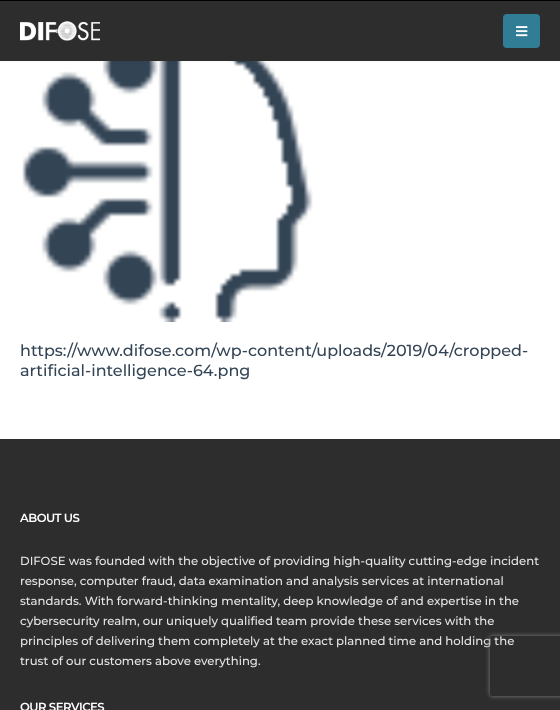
async function draw(canvas) {
  canvas.width = 560
  canvas.height = 710
  const ctx = canvas.getContext('2d')
  ctx.miterLimit = 4
  ctx.fontKerning = 'normal'
  async function loadImage(src) {
    const img = new Image()
    img.src = src
    await img.decode()
    return img
  }

  ctx.fillStyle = '#fff'
  ctx.fillRect(0, 0, 560, 710)
  ctx.drawImage(await loadImage('image2.png'), 22, 61, 291, 261)
  ctx.fillStyle = '#0000000f'
  ctx.filter = 'blur(1.5px)'
  ctx.beginPath()
  ctx.rect(0, 0, 560, 61)
  ctx.fill()
  ctx.filter = 'none'
  ctx.fillStyle = '#2d2d2d'
  ctx.fillRect(0, 1, 560, 60)
  ctx.fillStyle = '#000'
  ctx.fillRect(0, 0, 560, 1)
  ctx.drawImage(await loadImage('image0.png'), 20, 21, 80, 20)
  ctx.fillStyle = '#327d96'
  ctx.beginPath()
  ctx.roundRect(503, 14, 37, 34, 4)
  ctx.fill()
  ctx.drawImage(await loadImage('image1.png'), 516, 26, 12, 11)
  ctx.font = '500 16px Montserrat'
  ctx.fillStyle = '#345'
  ctx.fillText('https://www.difose.com/wp-content/uploads/2019/04/cropped-', 20, 356)
  ctx.fillText('artificial-intelligence-64.png', 20, 376)
  ctx.fillStyle = '#2d2d2d'
  ctx.fillRect(0, 439, 560, 271)
  ctx.letterSpacing = '-0.5px'
  ctx.font = '600 11.7px Montserrat'
  ctx.fillStyle = '#fff'
  ctx.fillText('ABOUT US', 20, 522)
  ctx.letterSpacing = '0px'
  ctx.font = '500 11.7px Montserrat'
  ctx.fillStyle = '#e5e5e5'
  ctx.fillText('DIFOSE was founded with the objective of providing high-quality cutting-edge incident', 20, 565)
  ctx.fillText('response, computer fraud, data examination and analysis services at international', 20, 585)
  ctx.fillText('standards. With forward-thinking mentality, deep knowledge of and expertise in the', 20, 605)
  ctx.fillText('cybersecurity realm, our uniquely qualified team provide these services with the', 20, 625)
  ctx.fillText('principles of delivering them completely at the exact planned time and holding the', 20, 645)
  ctx.fillText('trust of our customers above everything.', 20, 665)
  ctx.letterSpacing = '-0.5px'
  ctx.font = '600 11.7px Montserrat'
  ctx.fillStyle = '#fff'
  ctx.fillText('OUR SERVICES', 20, 711)
  ctx.save()
  ctx.beginPath()
  ctx.moveTo(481, 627)
  ctx.lineTo(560, 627)
  ctx.lineTo(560, 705)
  ctx.lineTo(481, 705)
  ctx.closePath()
  ctx.moveTo(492, 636)
  ctx.lineTo(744, 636)
  ctx.bezierCurveTo(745, 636, 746, 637, 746, 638)
  ctx.lineTo(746, 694)
  ctx.bezierCurveTo(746, 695, 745, 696, 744, 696)
  ctx.lineTo(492, 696)
  ctx.bezierCurveTo(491, 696, 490, 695, 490, 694)
  ctx.lineTo(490, 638)
  ctx.bezierCurveTo(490, 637, 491, 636, 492, 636)
  ctx.closePath()
  ctx.clip('evenodd')
  ctx.fillStyle = '#808080'
  ctx.filter = 'blur(2.5px)'
  ctx.beginPath()
  ctx.roundRect(490, 636, 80, 60, 2)
  ctx.fill()
  ctx.filter = 'none'
  ctx.restore()
}

draw(document.querySelector('canvas'))
